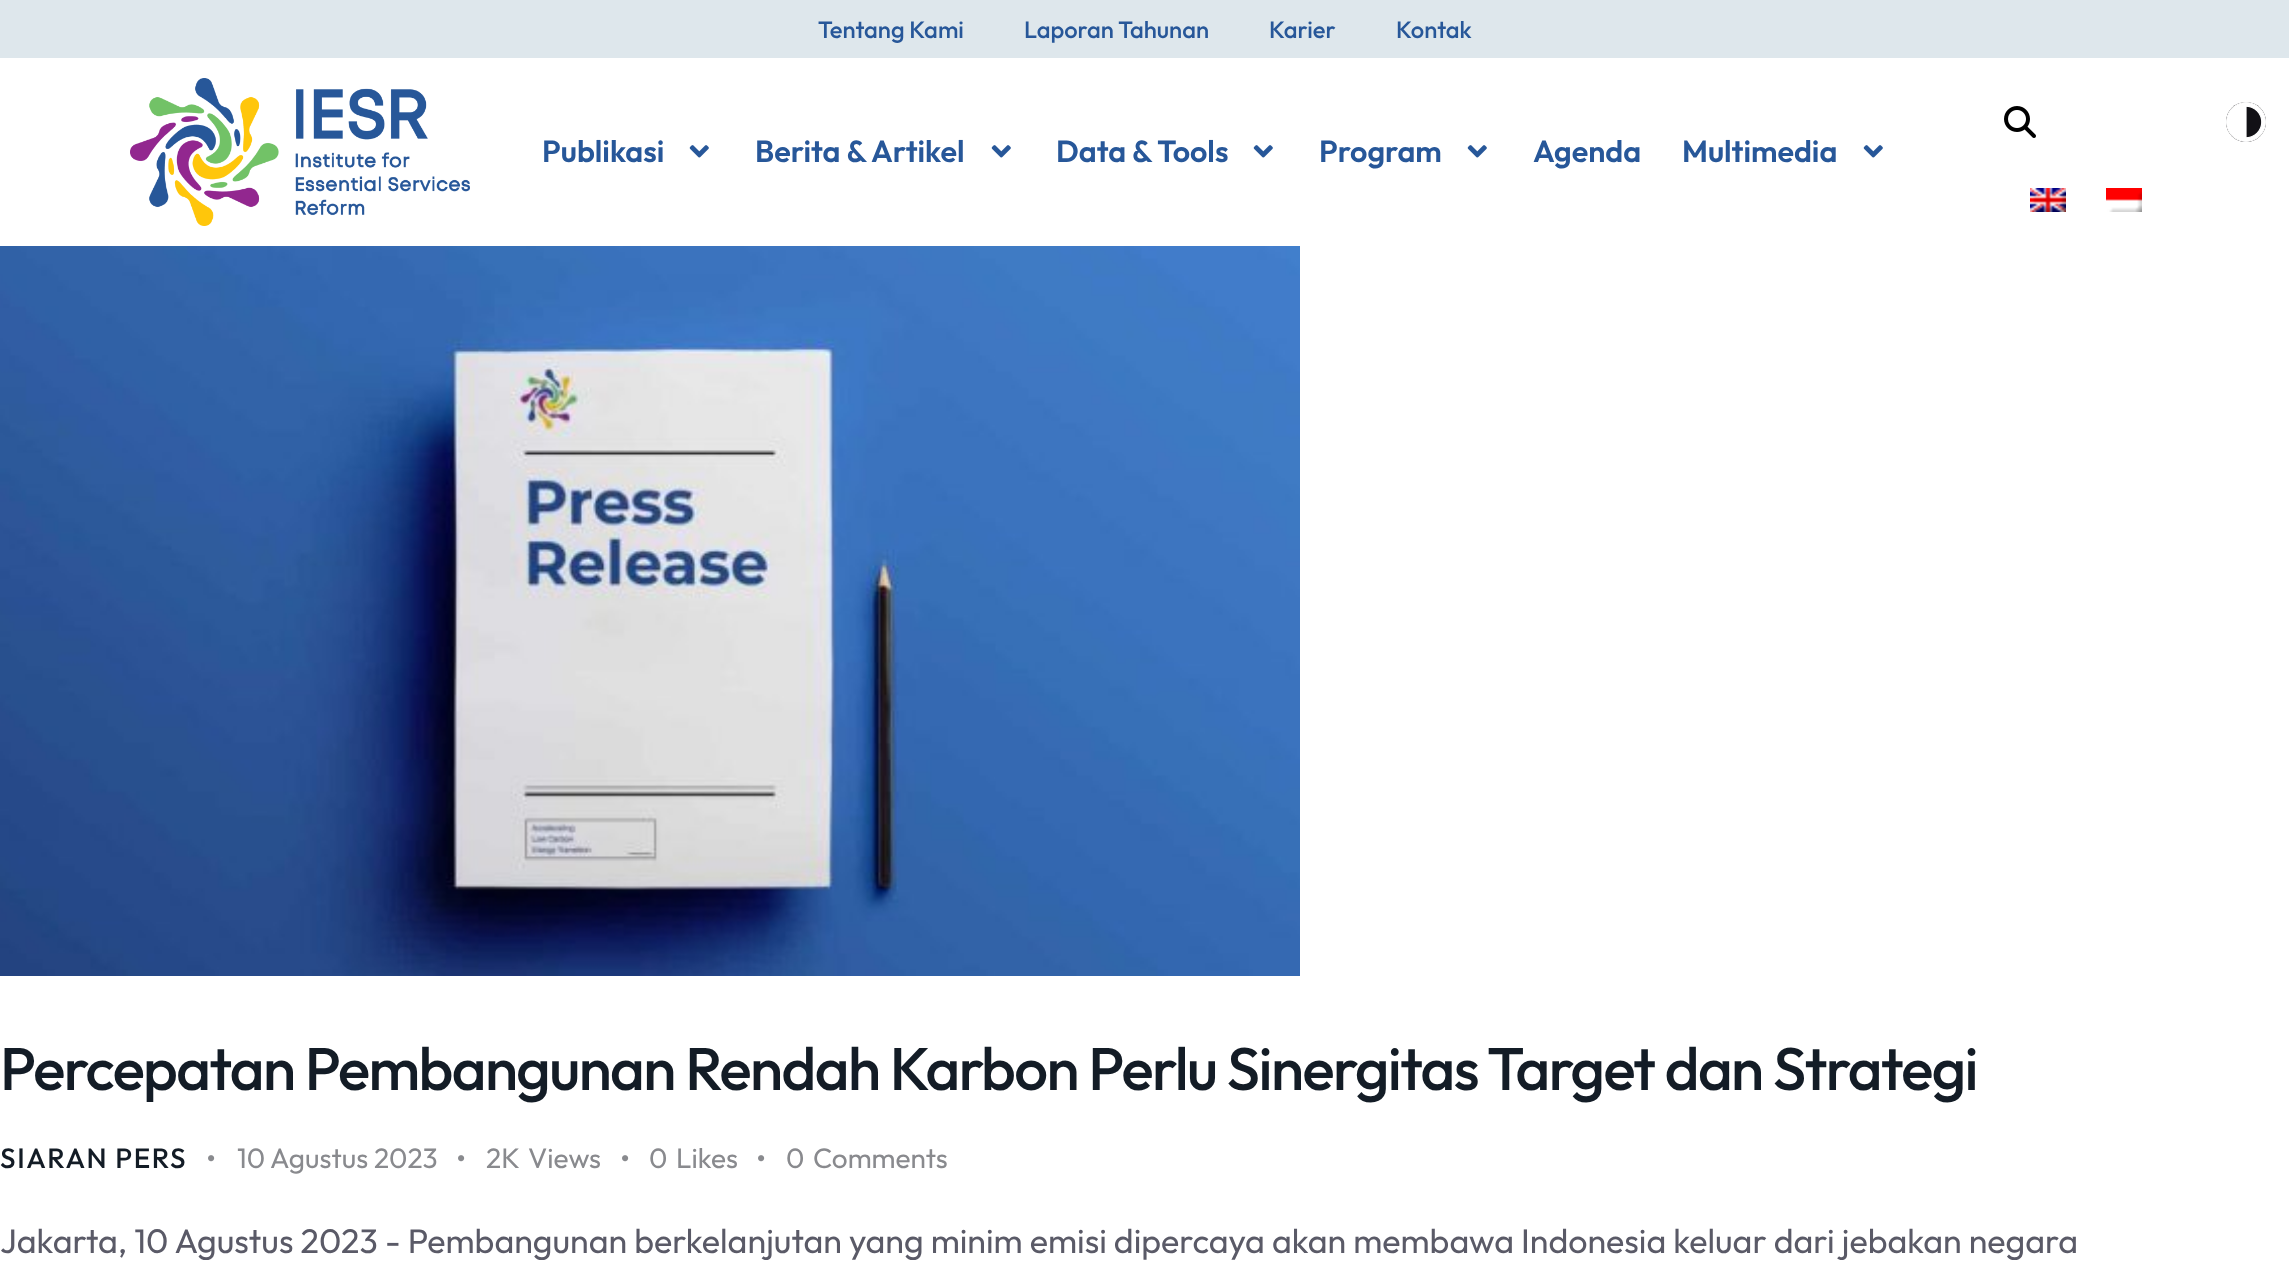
async function draw(canvas) {
  canvas.width = 2289
  canvas.height = 1272
  const ctx = canvas.getContext('2d')
  ctx.miterLimit = 4
  ctx.fontKerning = 'normal'
  async function loadImage(src) {
    const img = new Image()
    img.src = src
    await img.decode()
    return img
  }

  ctx.fillStyle = '#fff'
  ctx.fillRect(0, 0, 2289, 1272)
  ctx.fillStyle = '#dee7ec'
  ctx.fillRect(0, 0, 2289, 58)
  ctx.font = '500 23.75px Outfit'
  ctx.fillStyle = '#275799'
  ctx.fillText('Tentang Kami', 818, 38)
  ctx.fillText('Laporan Tahunan', 1024, 38)
  ctx.fillText('Karier', 1269, 38)
  ctx.fillText('Kontak', 1396, 38)
  ctx.drawImage(await loadImage('image0.png'), 130, 78, 340, 148)
  ctx.font = '600 30.5px Outfit'
  ctx.fillText('Publikasi', 542, 162)
  ctx.drawImage(await loadImage('image1.png'), 689, 145, 20, 13)
  ctx.fillText('Berita & Artikel', 755, 162)
  ctx.drawImage(await loadImage('image1.png'), 991, 145, 20, 13)
  ctx.fillText('Data & Tools', 1056, 162)
  ctx.drawImage(await loadImage('image1.png'), 1253, 145, 20, 13)
  ctx.fillText('Program', 1319, 162)
  ctx.drawImage(await loadImage('image1.png'), 1467, 145, 20, 13)
  ctx.fillText('Agenda', 1533, 162)
  ctx.fillText('Multimedia', 1682, 162)
  ctx.drawImage(await loadImage('image1.png'), 1863, 145, 20, 13)
  ctx.drawImage(await loadImage('image2.png'), 2004, 106, 32, 32)
  ctx.fillStyle = '#121116'
  ctx.beginPath()
  ctx.arc(2246, 122, 20, 0, 2 * Math.PI)
  ctx.fill()
  ctx.drawImage(await loadImage('image3.png'), 2226, 102, 40, 40)
  ctx.drawImage(await loadImage('image4.png'), 2030, 188, 36, 24)
  ctx.drawImage(await loadImage('image5.png'), 2106, 188, 36, 24)
  ctx.drawImage(await loadImage('image6.png'), 0, 246, 1300, 730)
  ctx.letterSpacing = '-1.6px'
  ctx.font = '500 60px Outfit'
  ctx.fillStyle = '#131c26'
  ctx.fillText('Percepatan Pembangunan Rendah Karbon Perlu Sinergitas Target dan Strategi', 0, 1090)
  ctx.letterSpacing = '1.6px'
  ctx.font = '500 28px Outfit'
  ctx.fillText('SIARAN PERS', 0, 1168)
  ctx.drawImage(await loadImage('image7.png'), 208, 1155, 7, 7)
  ctx.letterSpacing = '0px'
  ctx.font = '28px Outfit'
  ctx.fillStyle = '#898a8e'
  ctx.fillText('10 Agustus 2023', 237, 1168)
  ctx.drawImage(await loadImage('image7.png'), 458, 1155, 7, 7)
  ctx.fillText('2K', 486, 1168)
  ctx.fillText('Views', 528, 1168)
  ctx.drawImage(await loadImage('image7.png'), 622, 1155, 7, 7)
  ctx.fillText('0', 649, 1168)
  ctx.fillText('Likes', 676, 1168)
  ctx.drawImage(await loadImage('image7.png'), 758, 1155, 7, 7)
  ctx.fillText('0', 786, 1168)
  ctx.fillText('Comments', 813, 1168)
  ctx.font = '34px Outfit'
  ctx.fillStyle = '#5a5a67'
  ctx.fillText('Jakarta, 10 Agustus 2023 - Pembangunan berkelanjutan yang minim emisi dipercaya akan membawa Indonesia keluar dari jebakan negara', 0, 1253)
}

draw(document.querySelector('canvas'))
